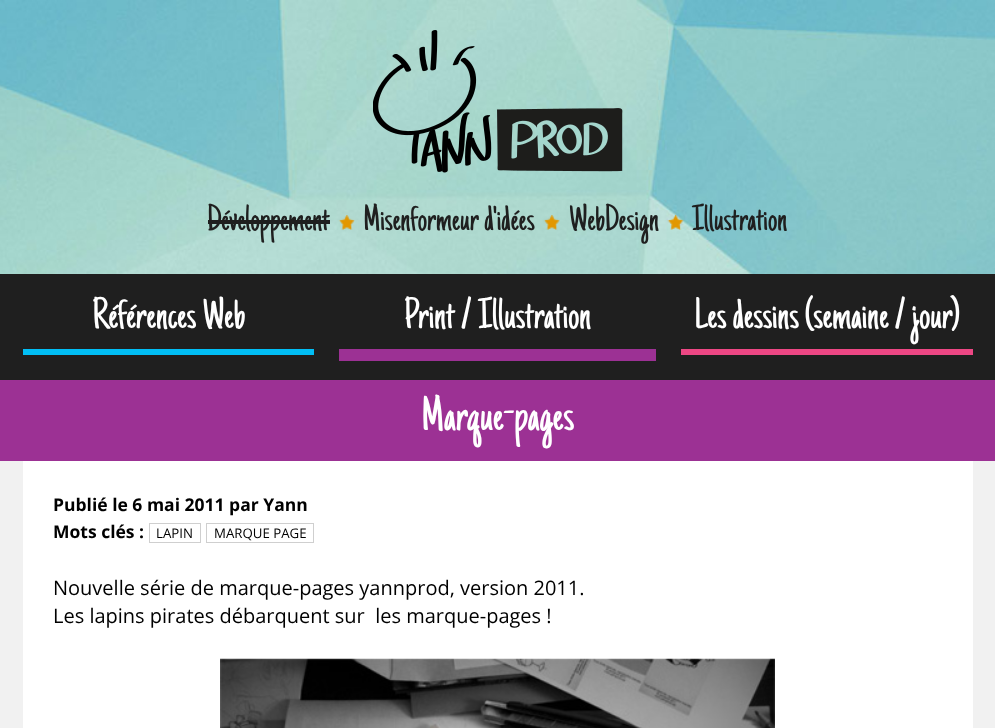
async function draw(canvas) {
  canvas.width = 995
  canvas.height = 728
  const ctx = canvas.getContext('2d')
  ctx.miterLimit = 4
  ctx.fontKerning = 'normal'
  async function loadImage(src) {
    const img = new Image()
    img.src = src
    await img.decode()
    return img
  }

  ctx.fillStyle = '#fff'
  ctx.fillRect(0, 0, 995, 728)
  ctx.drawImage(await loadImage('image0.png'), 0, 0, 995, 274)
  ctx.drawImage(await loadImage('image1.png'), 373, 30, 250, 143)
  ctx.font = '37.5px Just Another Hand'
  ctx.fillStyle = '#1f1f1f'
  ctx.fillText('Développement', 207, 230)
  ctx.fillRect(208, 220, 122, 4)
  ctx.drawImage(await loadImage('image2.png'), 338, 215, 17, 15)
  ctx.fillText('Misenformeur d\'idées', 363, 230)
  ctx.drawImage(await loadImage('image3.png'), 543, 215, 17, 15)
  ctx.fillText('WebDesign', 569, 230)
  ctx.drawImage(await loadImage('image4.png'), 667, 215, 17, 15)
  ctx.fillText('Illustration', 692, 230)
  ctx.fillRect(0, 274, 995, 106)
  ctx.fillStyle = '#01bef5'
  ctx.fillRect(23, 349, 291, 6)
  ctx.font = '44.5px Just Another Hand'
  ctx.fillStyle = '#fff'
  ctx.fillText('Références Web', 92, 328)
  ctx.fillStyle = '#9c3194'
  ctx.fillRect(339, 349, 317, 12)
  ctx.fillStyle = '#fff'
  ctx.fillText('Print / Illustration', 404, 328)
  ctx.fillStyle = '#ed4784'
  ctx.fillRect(681, 349, 292, 6)
  ctx.fillStyle = '#fff'
  ctx.fillText('Les dessins (semaine / jour)', 694, 328)
  ctx.fillStyle = '#f1f1f1'
  ctx.fillRect(0, 461, 995, 267)
  ctx.fillStyle = '#9c3194'
  ctx.fillRect(0, 380, 995, 81)
  ctx.font = '50px Just Another Hand'
  ctx.fillStyle = '#fff'
  ctx.fillText('Marque-pages', 421, 430)
  ctx.fillRect(23, 461, 950, 267)
  ctx.font = 'bold 17.5px Open Sans'
  ctx.fillStyle = '#000'
  ctx.fillText('Publié le 6 mai 2011 par Yann', 53, 511)
  ctx.fillText('Mots clés :', 53, 538)
  ctx.strokeStyle = '#cfcfcf'
  ctx.strokeRect(149.5, 523.5, 51, 19)
  ctx.font = '13.25px Open Sans'
  ctx.fillText('LAPIN', 156, 538)
  ctx.strokeRect(206.5, 523.5, 107, 19)
  ctx.fillText('MARQUE PAGE', 214, 538)
  ctx.font = '20px Open Sans'
  ctx.fillText('Nouvelle série de marque-pages yannprod, version 2011.', 53, 595)
  ctx.fillText('Les lapins pirates débarquent sur  les marque-pages !', 53, 623)
  ctx.drawImage(await loadImage('image5.png'), 220, 658, 555, 70)
}

draw(document.querySelector('canvas'))
